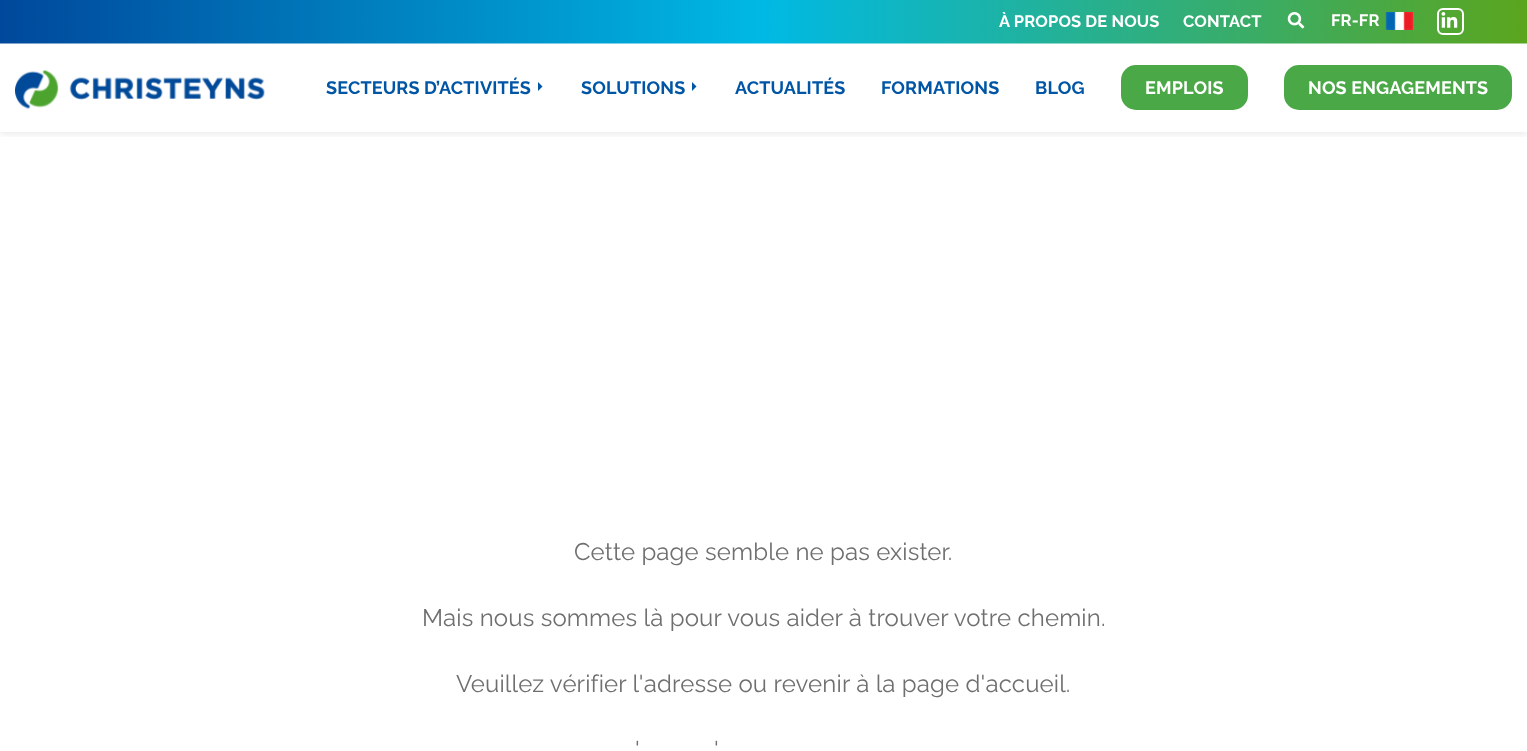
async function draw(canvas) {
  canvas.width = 1527
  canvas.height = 751
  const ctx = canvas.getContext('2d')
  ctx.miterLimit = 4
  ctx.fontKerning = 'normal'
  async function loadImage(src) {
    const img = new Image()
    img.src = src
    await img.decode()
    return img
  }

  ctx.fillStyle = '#fff'
  ctx.fillRect(0, 0, 1527, 751)
  ctx.save()
  ctx.beginPath()
  ctx.rect(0, 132, 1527, 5)
  ctx.clip()
  ctx.fillStyle = '#00000012'
  ctx.filter = 'blur(3px)'
  ctx.beginPath()
  ctx.rect(0, 3, 1527, 132)
  ctx.fill()
  ctx.filter = 'none'
  ctx.restore()
  ctx.drawImage(await loadImage('image0.png'), 0, 0, 1527, 44)
  ctx.letterSpacing = '0.15px'
  ctx.font = 'bold 16.5px Raleway'
  ctx.fillText('À PROPOS DE NOUS', 999, 27)
  ctx.fillText('CONTACT', 1183, 27)
  ctx.drawImage(await loadImage('image1.png'), 1287, 12, 18, 17)
  ctx.fillText('FR-FR', 1331, 26)
  ctx.drawImage(await loadImage('image2.png'), 1385, 12, 28, 18)
  ctx.beginPath()
  ctx.roundRect(1438, 9, 25, 25, 5)
  ctx.strokeStyle = '#fff'
  ctx.lineWidth = 2
  ctx.stroke()
  ctx.drawImage(await loadImage('image3.png'), 1441, 12, 17, 16)
  ctx.drawImage(await loadImage('image4.png'), 15, 70, 250, 39)
  ctx.font = 'bold 18px Raleway'
  ctx.fillStyle = '#0055a5'
  ctx.fillText('SECTEURS D’ACTIVITÉS', 326, 94)
  ctx.beginPath()
  ctx.moveTo(538, 91)
  ctx.lineTo(538, 82)
  ctx.lineTo(542.5, 86.5)
  ctx.closePath()
  ctx.fill()
  ctx.fillText('SOLUTIONS', 581, 94)
  ctx.beginPath()
  ctx.moveTo(692, 91)
  ctx.lineTo(692, 82)
  ctx.lineTo(696.5, 86.5)
  ctx.closePath()
  ctx.fill()
  ctx.fillText('ACTUALITÉS', 735, 94)
  ctx.fillText('FORMATIONS', 881, 94)
  ctx.fillText('BLOG', 1035, 94)
  ctx.fillStyle = '#4aa846'
  ctx.beginPath()
  ctx.roundRect(1121, 65, 127, 45, 15)
  ctx.fill()
  ctx.fillStyle = '#fff'
  ctx.fillText('EMPLOIS', 1145, 94)
  ctx.fillStyle = '#4aa846'
  ctx.beginPath()
  ctx.roundRect(1284, 65, 228, 45, 15)
  ctx.fill()
  ctx.fillStyle = '#fff'
  ctx.fillText('NOS ENGAGEMENTS', 1308, 94)
  ctx.font = '24px Raleway'
  ctx.fillStyle = '#706f6f'
  ctx.fillText('Cette page semble ne pas exister.', 574, 560)
  ctx.fillText('Mais nous sommes là pour vous aider à trouver votre chemin.', 422, 626)
  ctx.fillText('Veuillez vérifier l\'adresse ou revenir à la page d\'accueil.', 456, 692)
  ctx.fillText('\'', 635, 758)
  ctx.fillText('\'', 714, 758)
}

draw(document.querySelector('canvas'))
